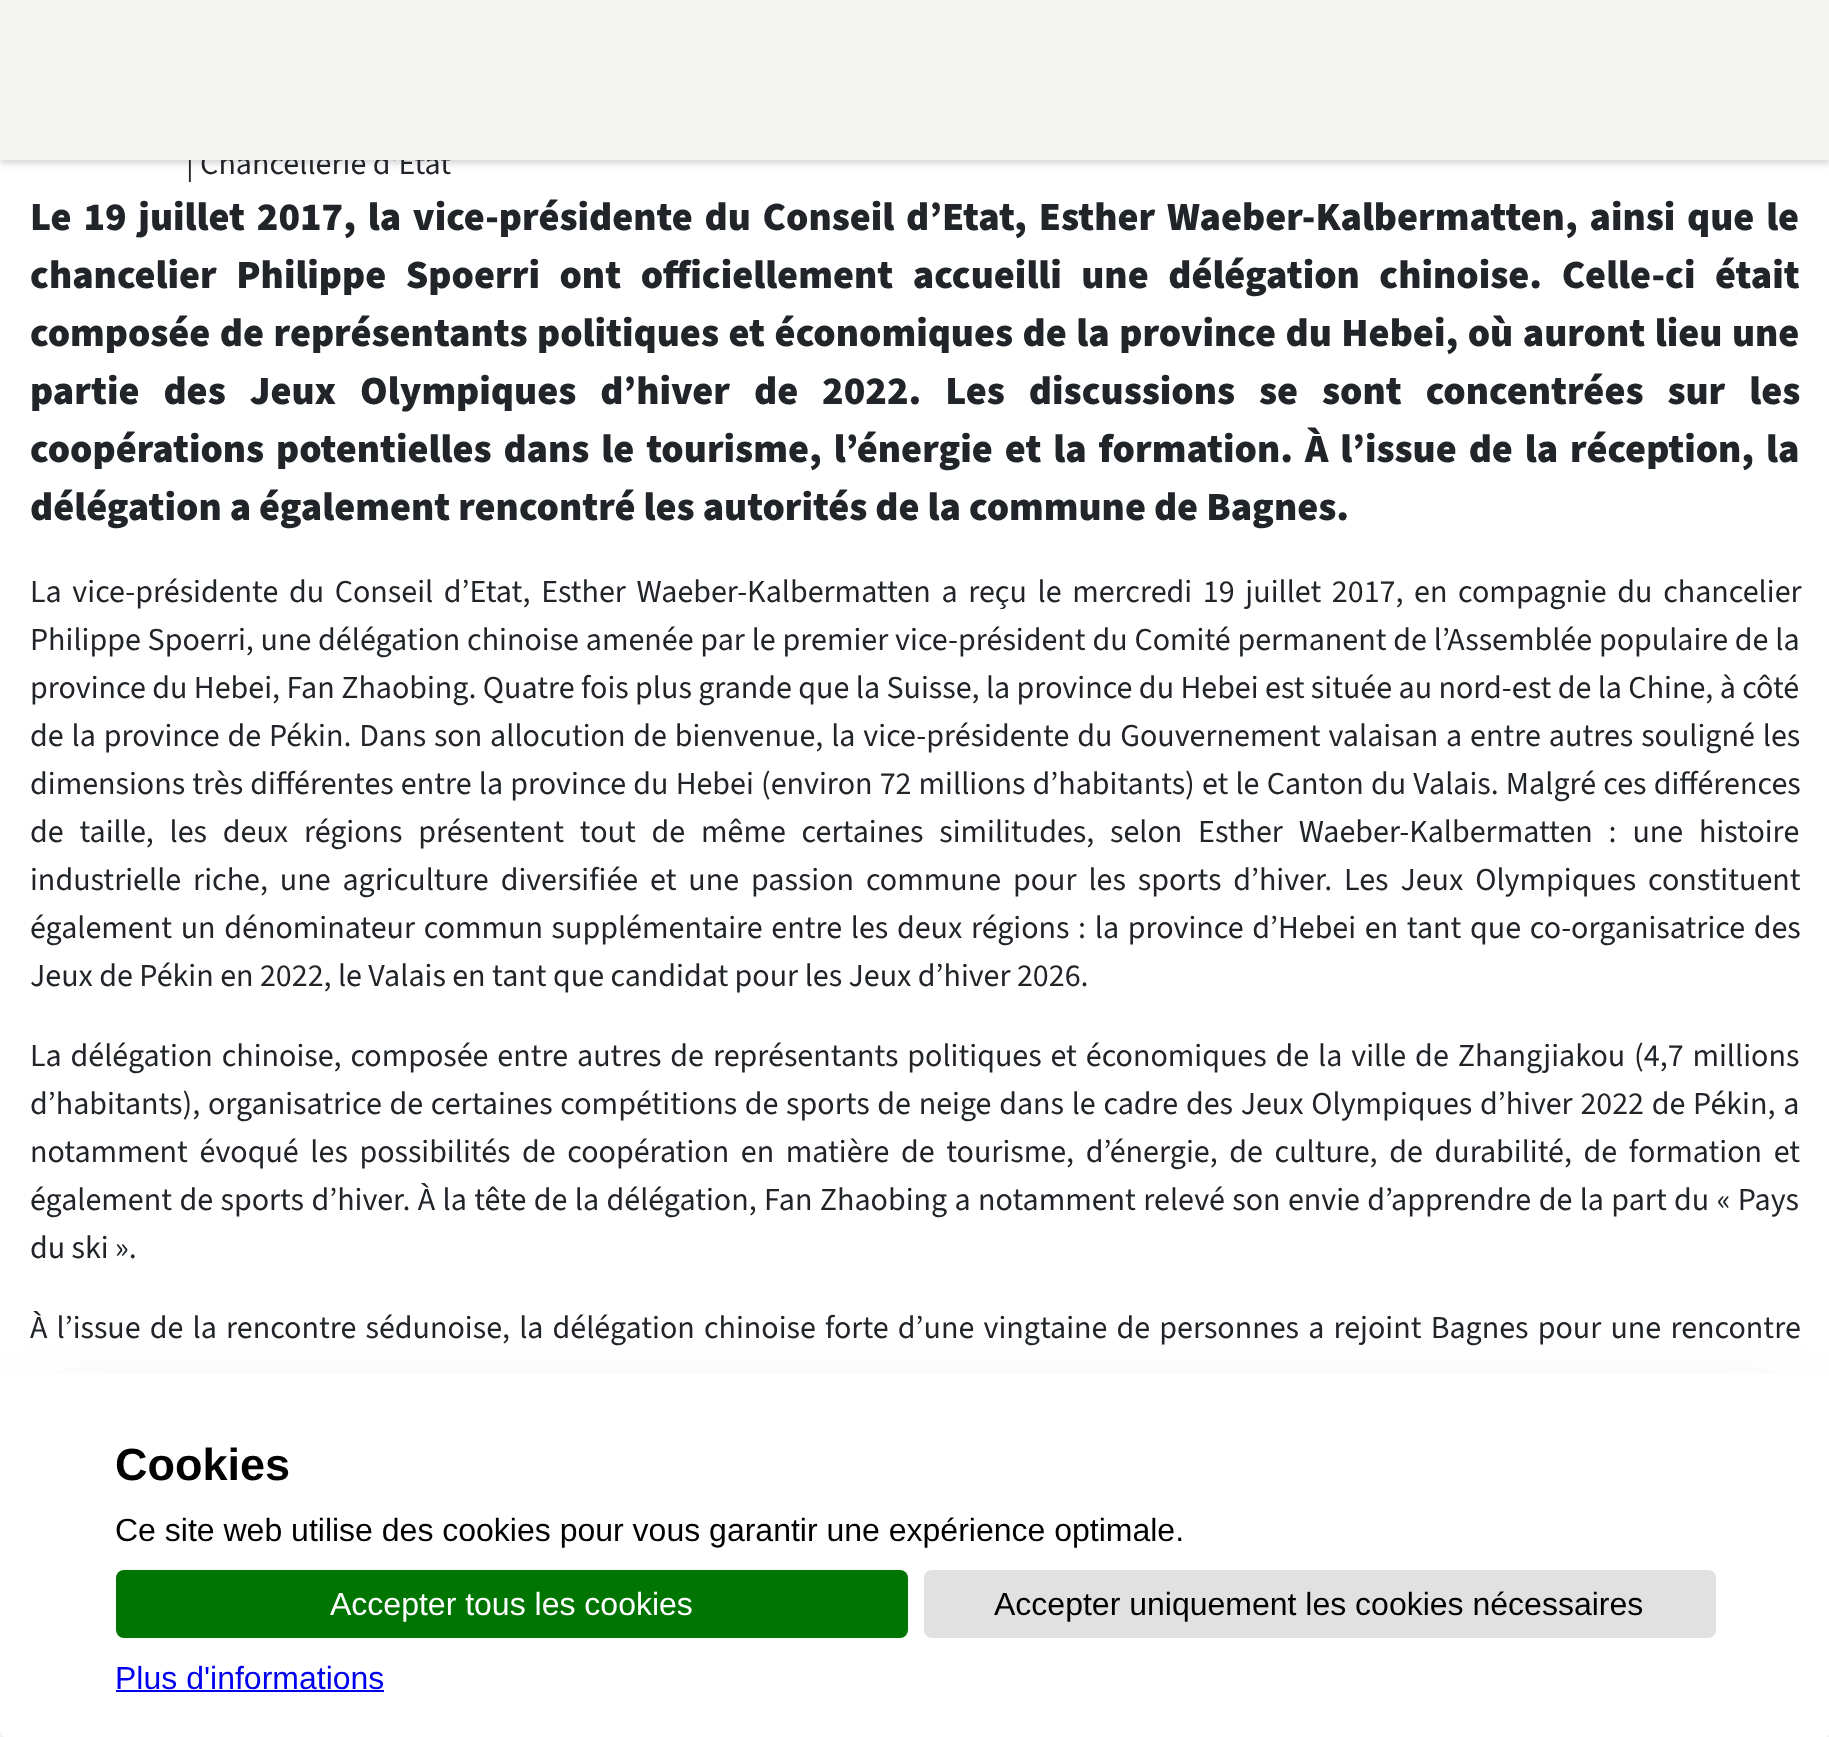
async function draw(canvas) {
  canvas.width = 1829
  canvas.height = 1737
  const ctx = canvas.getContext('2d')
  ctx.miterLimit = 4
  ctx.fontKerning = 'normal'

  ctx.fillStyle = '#fff'
  ctx.fillRect(0, 0, 1829, 1737)
  ctx.fillStyle = '#00000026'
  ctx.filter = 'blur(3px)'
  ctx.beginPath()
  ctx.rect(0, 4, 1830, 160)
  ctx.fill()
  ctx.filter = 'none'
  ctx.font = '32px "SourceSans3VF"'
  ctx.fillStyle = '#212529'
  ctx.fillText('| Chancellerie d\'Etat', 186, 174)
  ctx.fillStyle = '#f3f3f2'
  ctx.fillRect(0, 0, 1829, 160)
  ctx.wordSpacing = '3.75px'
  ctx.font = '900 40px "SourceSans3VF"'
  ctx.fillStyle = '#212529'
  ctx.fillText('Le 19 juillet 2017, la vice-présidente du Conseil d’Etat, Esther Waeber-Kalbermatten, ainsi que le', 30, 230)
  ctx.wordSpacing = '11.5px'
  ctx.fillText('chancelier Philippe Spoerri ont officiellement accueilli une délégation chinoise. Celle-ci était', 30, 288)
  ctx.wordSpacing = '1.5px'
  ctx.fillText('composée de représentants politiques et économiques de la province du Hebei, où auront lieu une', 30, 346)
  ctx.wordSpacing = '15.9px'
  ctx.fillText('partie des Jeux Olympiques d’hiver de 2022. Les discussions se sont concentrées sur les', 30, 404)
  ctx.wordSpacing = '3.9px'
  ctx.fillText('coopérations potentielles dans le tourisme, l’énergie et la formation. À l’issue de la réception, la', 30, 462)
  ctx.wordSpacing = '0px'
  ctx.fillText('délégation a également rencontré les autorités de la commune de Bagnes.', 30, 520)
  ctx.wordSpacing = '4.25px'
  ctx.font = '32px "SourceSans3VF"'
  ctx.fillText('La vice-présidente du Conseil d’Etat, Esther Waeber-Kalbermatten a reçu le mercredi 19 juillet 2017, en compagnie du chancelier', 30, 602)
  ctx.wordSpacing = '0.4px'
  ctx.fillText('Philippe Spoerri, une délégation chinoise amenée par le premier vice-président du Comité permanent de l’Assemblée populaire de la', 30, 650)
  ctx.wordSpacing = '0px'
  ctx.fillText('province du Hebei, Fan Zhaobing. Quatre fois plus grande que la Suisse, la province du Hebei est située au nord-est de la Chine, à côté', 30, 698)
  ctx.wordSpacing = '1.5px'
  ctx.fillText('de la province de Pékin. Dans son allocution de bienvenue, la vice-présidente du Gouvernement valaisan a entre autres souligné les', 30, 746)
  ctx.wordSpacing = '0.75px'
  ctx.fillText('dimensions très différentes entre la province du Hebei (environ 72 millions d’habitants) et le Canton du Valais. Malgré ces différences', 30, 794)
  ctx.wordSpacing = '9.4px'
  ctx.fillText('de taille, les deux régions présentent tout de même certaines similitudes, selon Esther Waeber-Kalbermatten : une histoire', 30, 842)
  ctx.wordSpacing = '5.5px'
  ctx.fillText('industrielle riche, une agriculture diversifiée et une passion commune pour les sports d’hiver. Les Jeux Olympiques constituent', 30, 890)
  ctx.wordSpacing = '2.25px'
  ctx.fillText('également un dénominateur commun supplémentaire entre les deux régions : la province d’Hebei en tant que co-organisatrice des', 30, 938)
  ctx.wordSpacing = '0px'
  ctx.fillText('Jeux de Pékin en 2022, le Valais en tant que candidat pour les Jeux d’hiver 2026.', 30, 986)
  ctx.wordSpacing = '2.5px'
  ctx.fillText('La délégation chinoise, composée entre autres de représentants politiques et économiques de la ville de Zhangjiakou (4,7 millions', 30, 1066)
  ctx.wordSpacing = '1.3px'
  ctx.fillText('d’habitants), organisatrice de certaines compétitions de sports de neige dans le cadre des Jeux Olympiques d’hiver 2022 de Pékin, a', 30, 1114)
  ctx.wordSpacing = '5.25px'
  ctx.fillText('notamment évoqué les possibilités de coopération en matière de tourisme, d’énergie, de culture, de durabilité, de formation et', 30, 1162)
  ctx.wordSpacing = '1px'
  ctx.fillText('également de sports d’hiver. À la tête de la délégation, Fan Zhaobing a notamment relevé son envie d’apprendre de la part du « Pays', 30, 1210)
  ctx.wordSpacing = '0px'
  ctx.fillText('du ski ».', 30, 1258)
  ctx.wordSpacing = '2.75px'
  ctx.fillText('À l’issue de la rencontre sédunoise, la délégation chinoise forte d’une vingtaine de personnes a rejoint Bagnes pour une rencontre', 30, 1338)
  ctx.fillStyle = '#00000040'
  ctx.filter = 'blur(50px)'
  ctx.beginPath()
  ctx.rect(24, 1448, 1782, 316)
  ctx.fill()
  ctx.filter = 'none'
  ctx.fillStyle = '#fff'
  ctx.beginPath()
  ctx.roundRect(0, 1374, 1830, 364, 8)
  ctx.fill()
  ctx.wordSpacing = '0px'
  ctx.font = 'bold 45px Liberation Sans'
  ctx.fillStyle = '#000'
  ctx.fillText('Cookies', 115, 1480)
  ctx.font = '32px Liberation Sans'
  ctx.fillText('Ce site web utilise des cookies pour vous garantir une expérience optimale.', 115, 1541)
  ctx.fillStyle = '#007502'
  ctx.beginPath()
  ctx.roundRect(116, 1570, 792, 68, 8)
  ctx.fill()
  ctx.fillStyle = '#fff'
  ctx.fillText('Accepter tous les cookies', 330, 1615)
  ctx.fillStyle = '#e1e1e1'
  ctx.beginPath()
  ctx.roundRect(924, 1570, 792, 68, 8)
  ctx.fill()
  ctx.fillStyle = '#000'
  ctx.fillText('Accepter uniquement les cookies nécessaires', 994, 1615)
  ctx.fillStyle = '#00e'
  ctx.fillText('Plus d\'informations', 115, 1689)
  ctx.fillRect(116, 1690, 268, 2)
}

draw(document.querySelector('canvas'))
